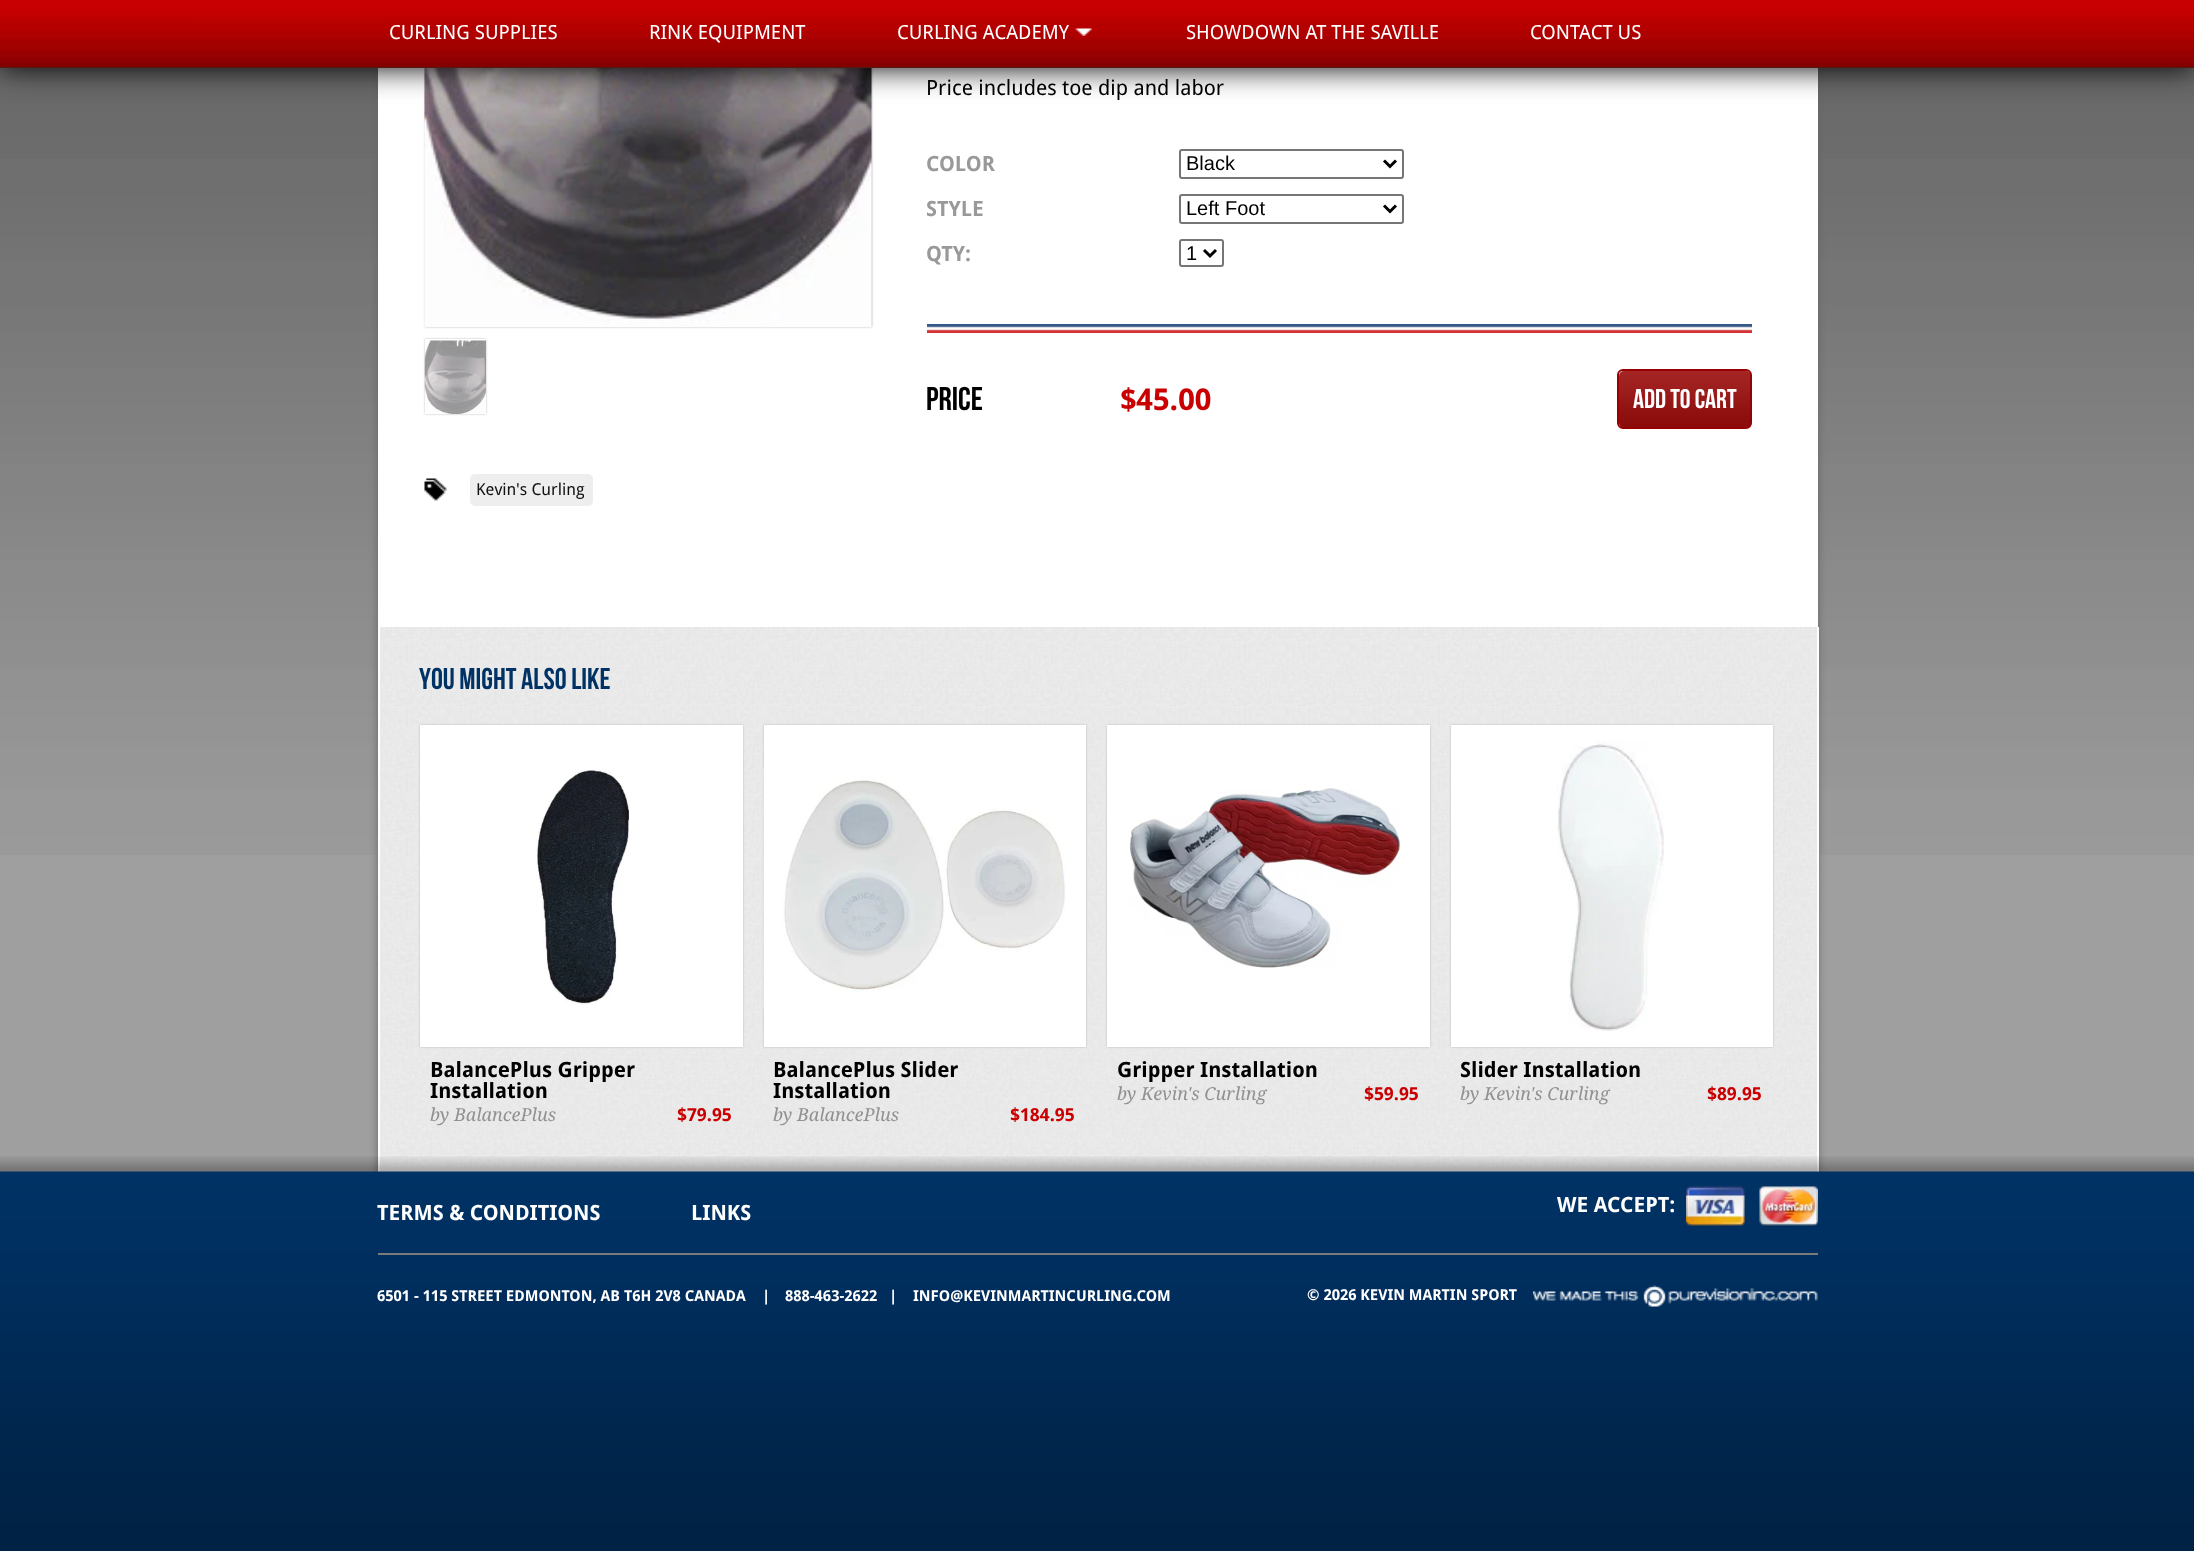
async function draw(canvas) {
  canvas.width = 2194
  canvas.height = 1551
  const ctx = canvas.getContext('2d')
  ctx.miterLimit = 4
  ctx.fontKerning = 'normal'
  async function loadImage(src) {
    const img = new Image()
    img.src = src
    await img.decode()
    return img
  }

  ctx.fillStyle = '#9f9f9f'
  ctx.fillRect(0, 0, 2194, 1551)
  ctx.drawImage(await loadImage('image0.png'), 0, 68, 2194, 787)
  ctx.fillStyle = '#666'
  ctx.filter = 'blur(4.5px)'
  ctx.beginPath()
  ctx.rect(378, -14, 1440, 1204)
  ctx.fill()
  ctx.filter = 'none'
  ctx.fillStyle = '#fff'
  ctx.fillRect(378, 68, 1440, 559)
  ctx.fillStyle = '#bbb'
  ctx.filter = 'blur(1px)'
  ctx.beginPath()
  ctx.rect(425, -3, 447, 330)
  ctx.fill()
  ctx.filter = 'none'
  ctx.drawImage(await loadImage('image3.png'), 424, 68, 448, 259)
  ctx.fillStyle = '#000'
  ctx.filter = 'blur(15px)'
  ctx.beginPath()
  ctx.rect(0, 0, 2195, 68)
  ctx.fill()
  ctx.filter = 'none'
  ctx.fillStyle = '#313131'
  ctx.fillRect(0, 67, 2194, 1)
  ctx.drawImage(await loadImage('image1.png'), 0, 0, 2194, 68)
  ctx.font = '19.5px Droid Sans'
  ctx.fillStyle = '#fff'
  ctx.fillText('CURLING SUPPLIES', 389, 39)
  ctx.fillText('RINK EQUIPMENT', 649, 39)
  ctx.fillText('CURLING ACADEMY', 897, 39)
  ctx.drawImage(await loadImage('image2.png'), 1075, 28, 17, 8)
  ctx.fillText('SHOWDOWN AT THE SAVILLE', 1186, 39)
  ctx.fillText('CONTACT US', 1530, 39)
  ctx.save()
  ctx.beginPath()
  ctx.moveTo(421, 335)
  ctx.lineTo(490, 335)
  ctx.lineTo(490, 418)
  ctx.lineTo(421, 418)
  ctx.closePath()
  ctx.moveTo(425, 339)
  ctx.lineTo(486, 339)
  ctx.lineTo(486, 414)
  ctx.lineTo(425, 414)
  ctx.closePath()
  ctx.clip('evenodd')
  ctx.fillStyle = '#bbb'
  ctx.filter = 'blur(1px)'
  ctx.beginPath()
  ctx.rect(425, 339, 61, 75)
  ctx.fill()
  ctx.filter = 'none'
  ctx.restore()
  ctx.drawImage(await loadImage('image4.png'), 424, 340, 62, 74)
  ctx.font = '21px Droid Sans'
  ctx.fillStyle = '#000'
  ctx.fillText('Price includes toe dip and labor', 926, 95)
  ctx.font = 'bold 21px Droid Sans'
  ctx.fillStyle = '#999'
  ctx.fillText('COLOR', 926, 171)
  ctx.beginPath()
  ctx.roundRect(1180, 150, 223, 28, 2)
  ctx.strokeStyle = '#767676'
  ctx.lineWidth = 2
  ctx.stroke()
  ctx.beginPath()
  ctx.moveTo(1384, 160.5)
  ctx.lineTo(1390, 166.5)
  ctx.lineTo(1396, 160.5)
  ctx.strokeStyle = '#000'
  ctx.lineWidth = 3
  ctx.stroke()
  ctx.font = '20px Liberation Sans'
  ctx.fillStyle = '#000'
  ctx.fillText('Black', 1186, 170)
  ctx.font = 'bold 21px Droid Sans'
  ctx.fillStyle = '#999'
  ctx.fillText('STYLE', 926, 216)
  ctx.beginPath()
  ctx.roundRect(1180, 195, 223, 28, 2)
  ctx.strokeStyle = '#767676'
  ctx.lineWidth = 2
  ctx.stroke()
  ctx.beginPath()
  ctx.moveTo(1384, 205.5)
  ctx.lineTo(1390, 211.5)
  ctx.lineTo(1396, 205.5)
  ctx.strokeStyle = '#000'
  ctx.lineWidth = 3
  ctx.stroke()
  ctx.font = '20px Liberation Sans'
  ctx.fillStyle = '#000'
  ctx.fillText('Left Foot', 1186, 215)
  ctx.font = 'bold 21px Droid Sans'
  ctx.fillStyle = '#999'
  ctx.fillText('QTY:', 926, 261)
  ctx.beginPath()
  ctx.roundRect(1180, 240, 43, 26, 2)
  ctx.strokeStyle = '#767676'
  ctx.lineWidth = 2
  ctx.stroke()
  ctx.beginPath()
  ctx.moveTo(1204, 250)
  ctx.lineTo(1210, 256)
  ctx.lineTo(1216, 250)
  ctx.strokeStyle = '#000'
  ctx.lineWidth = 3
  ctx.stroke()
  ctx.font = '20px Liberation Sans'
  ctx.fillStyle = '#000'
  ctx.fillText('1', 1186, 260)
  ctx.drawImage(await loadImage('image5.png'), 927, 324, 825, 9)
  ctx.font = '33px Bebas Neue'
  ctx.fillText('Price', 926, 410)
  ctx.font = 'bold 30px Droid Sans'
  ctx.fillStyle = '#ca0000'
  ctx.fillText('$45.00', 1120, 410)
  ctx.fillStyle = '#960000'
  ctx.beginPath()
  ctx.roundRect(1619, 371, 132, 57, 5)
  ctx.fill()
  ctx.drawImage(await loadImage('image6.png'), 1619, 371, 131, 56)
  ctx.beginPath()
  ctx.roundRect(1618, 370, 133, 58, 5)
  ctx.strokeStyle = '#960000'
  ctx.lineWidth = 2
  ctx.stroke()
  ctx.font = '27px Bebas Neue'
  ctx.fillStyle = '#fff'
  ctx.fillText('ADD TO CART', 1633, 408)
  ctx.drawImage(await loadImage('image7.png'), 424, 478, 23, 23)
  ctx.fillStyle = '#eee'
  ctx.beginPath()
  ctx.roundRect(470, 474, 123, 32, 5)
  ctx.fill()
  ctx.font = '16.5px Droid Sans'
  ctx.fillStyle = '#111'
  ctx.fillText('Kevin\'s Curling', 476, 495)
  ctx.fillStyle = '#eaeaea'
  ctx.fillRect(380, 627, 1437, 545)
  ctx.drawImage(await loadImage('image8.png'), 381, 627, 1436, 540)
  ctx.fillStyle = '#fff'
  ctx.fillRect(1817, 627, 2, 545)
  ctx.fillRect(378, 627, 2, 545)
  ctx.font = '30px Bebas Neue'
  ctx.fillStyle = '#003265'
  ctx.fillText('You Might Also Like', 419, 689)
  ctx.fillStyle = '#bbb'
  ctx.filter = 'blur(1px)'
  ctx.beginPath()
  ctx.rect(420, 725, 323, 322)
  ctx.fill()
  ctx.filter = 'none'
  ctx.fillStyle = '#fff'
  ctx.fillRect(420, 725, 323, 322)
  ctx.drawImage(await loadImage('image9.png'), 536, 769, 94, 236)
  ctx.font = 'bold 21px Droid Sans'
  ctx.fillStyle = '#000'
  ctx.fillText('BalancePlus Gripper', 430, 1077)
  ctx.fillText('Installation', 430, 1098)
  ctx.font = 'italic 18px Droid Serif'
  ctx.fillStyle = '#919191'
  ctx.fillText('by BalancePlus', 430, 1121)
  ctx.font = 'bold 18px Droid Sans'
  ctx.fillStyle = '#ca0000'
  ctx.fillText('$79.95', 677, 1121)
  ctx.fillStyle = '#bbb'
  ctx.filter = 'blur(1px)'
  ctx.beginPath()
  ctx.rect(764, 725, 322, 322)
  ctx.fill()
  ctx.filter = 'none'
  ctx.fillStyle = '#fff'
  ctx.fillRect(764, 725, 322, 322)
  ctx.drawImage(await loadImage('image10.png'), 763, 767, 303, 241)
  ctx.font = 'bold 21px Droid Sans'
  ctx.fillStyle = '#000'
  ctx.fillText('BalancePlus Slider', 773, 1077)
  ctx.fillText('Installation', 773, 1098)
  ctx.font = 'italic 18px Droid Serif'
  ctx.fillStyle = '#919191'
  ctx.fillText('by BalancePlus', 773, 1121)
  ctx.font = 'bold 18px Droid Sans'
  ctx.fillStyle = '#ca0000'
  ctx.fillText('$184.95', 1010, 1121)
  ctx.fillStyle = '#bbb'
  ctx.filter = 'blur(1px)'
  ctx.beginPath()
  ctx.rect(1107, 725, 323, 322)
  ctx.fill()
  ctx.filter = 'none'
  ctx.fillStyle = '#fff'
  ctx.fillRect(1107, 725, 323, 322)
  ctx.drawImage(await loadImage('image11.png'), 1129, 788, 272, 180)
  ctx.font = 'bold 21px Droid Sans'
  ctx.fillStyle = '#000'
  ctx.fillText('Gripper Installation', 1117, 1077)
  ctx.font = 'italic 18px Droid Serif'
  ctx.fillStyle = '#919191'
  ctx.fillText('by Kevin\'s Curling', 1117, 1100)
  ctx.font = 'bold 18px Droid Sans'
  ctx.fillStyle = '#ca0000'
  ctx.fillText('$59.95', 1364, 1100)
  ctx.fillStyle = '#bbb'
  ctx.filter = 'blur(1px)'
  ctx.beginPath()
  ctx.rect(1451, 725, 322, 322)
  ctx.fill()
  ctx.filter = 'none'
  ctx.fillStyle = '#fff'
  ctx.fillRect(1451, 725, 322, 322)
  ctx.drawImage(await loadImage('image12.png'), 1557, 740, 107, 292)
  ctx.font = 'bold 21px Droid Sans'
  ctx.fillStyle = '#000'
  ctx.fillText('Slider Installation', 1460, 1077)
  ctx.font = 'italic 18px Droid Serif'
  ctx.fillStyle = '#919191'
  ctx.fillText('by Kevin\'s Curling', 1460, 1100)
  ctx.font = 'bold 18px Droid Sans'
  ctx.fillStyle = '#ca0000'
  ctx.fillText('$89.95', 1707, 1100)
  ctx.drawImage(await loadImage('image13.png'), 0, 1156, 2194, 395)
  ctx.fillStyle = '#7b7b7b'
  ctx.fillRect(378, 1253, 1440, 2)
  ctx.font = 'bold 21px Droid Sans'
  ctx.fillStyle = '#fff'
  ctx.fillText('TERMS & CONDITIONS', 377, 1220)
  ctx.fillText('LINKS', 691, 1220)
  ctx.font = 'bold 15px Droid Sans'
  ctx.fillText('6501 - 115 STREET EDMONTON, AB T6H 2V8 CANADA', 377, 1301)
  ctx.fillText('|', 762, 1301)
  ctx.fillText('888-463-2622', 785, 1301)
  ctx.fillText('|', 889, 1301)
  ctx.fillText('INFO@KEVINMARTINCURLING.COM', 913, 1301)
  ctx.font = 'bold 21px Droid Sans'
  ctx.fillText('WE ACCEPT:', 1557, 1212)
  ctx.drawImage(await loadImage('image14.png'), 1686, 1186, 59, 41)
  ctx.drawImage(await loadImage('image15.png'), 1759, 1186, 59, 41)
  ctx.font = 'bold 15px Droid Sans'
  ctx.fillText('© 2026 KEVIN MARTIN SPORT', 1307, 1300)
  ctx.drawImage(await loadImage('image16.png'), 1533, 1285, 285, 22)
}

draw(document.querySelector('canvas'))
